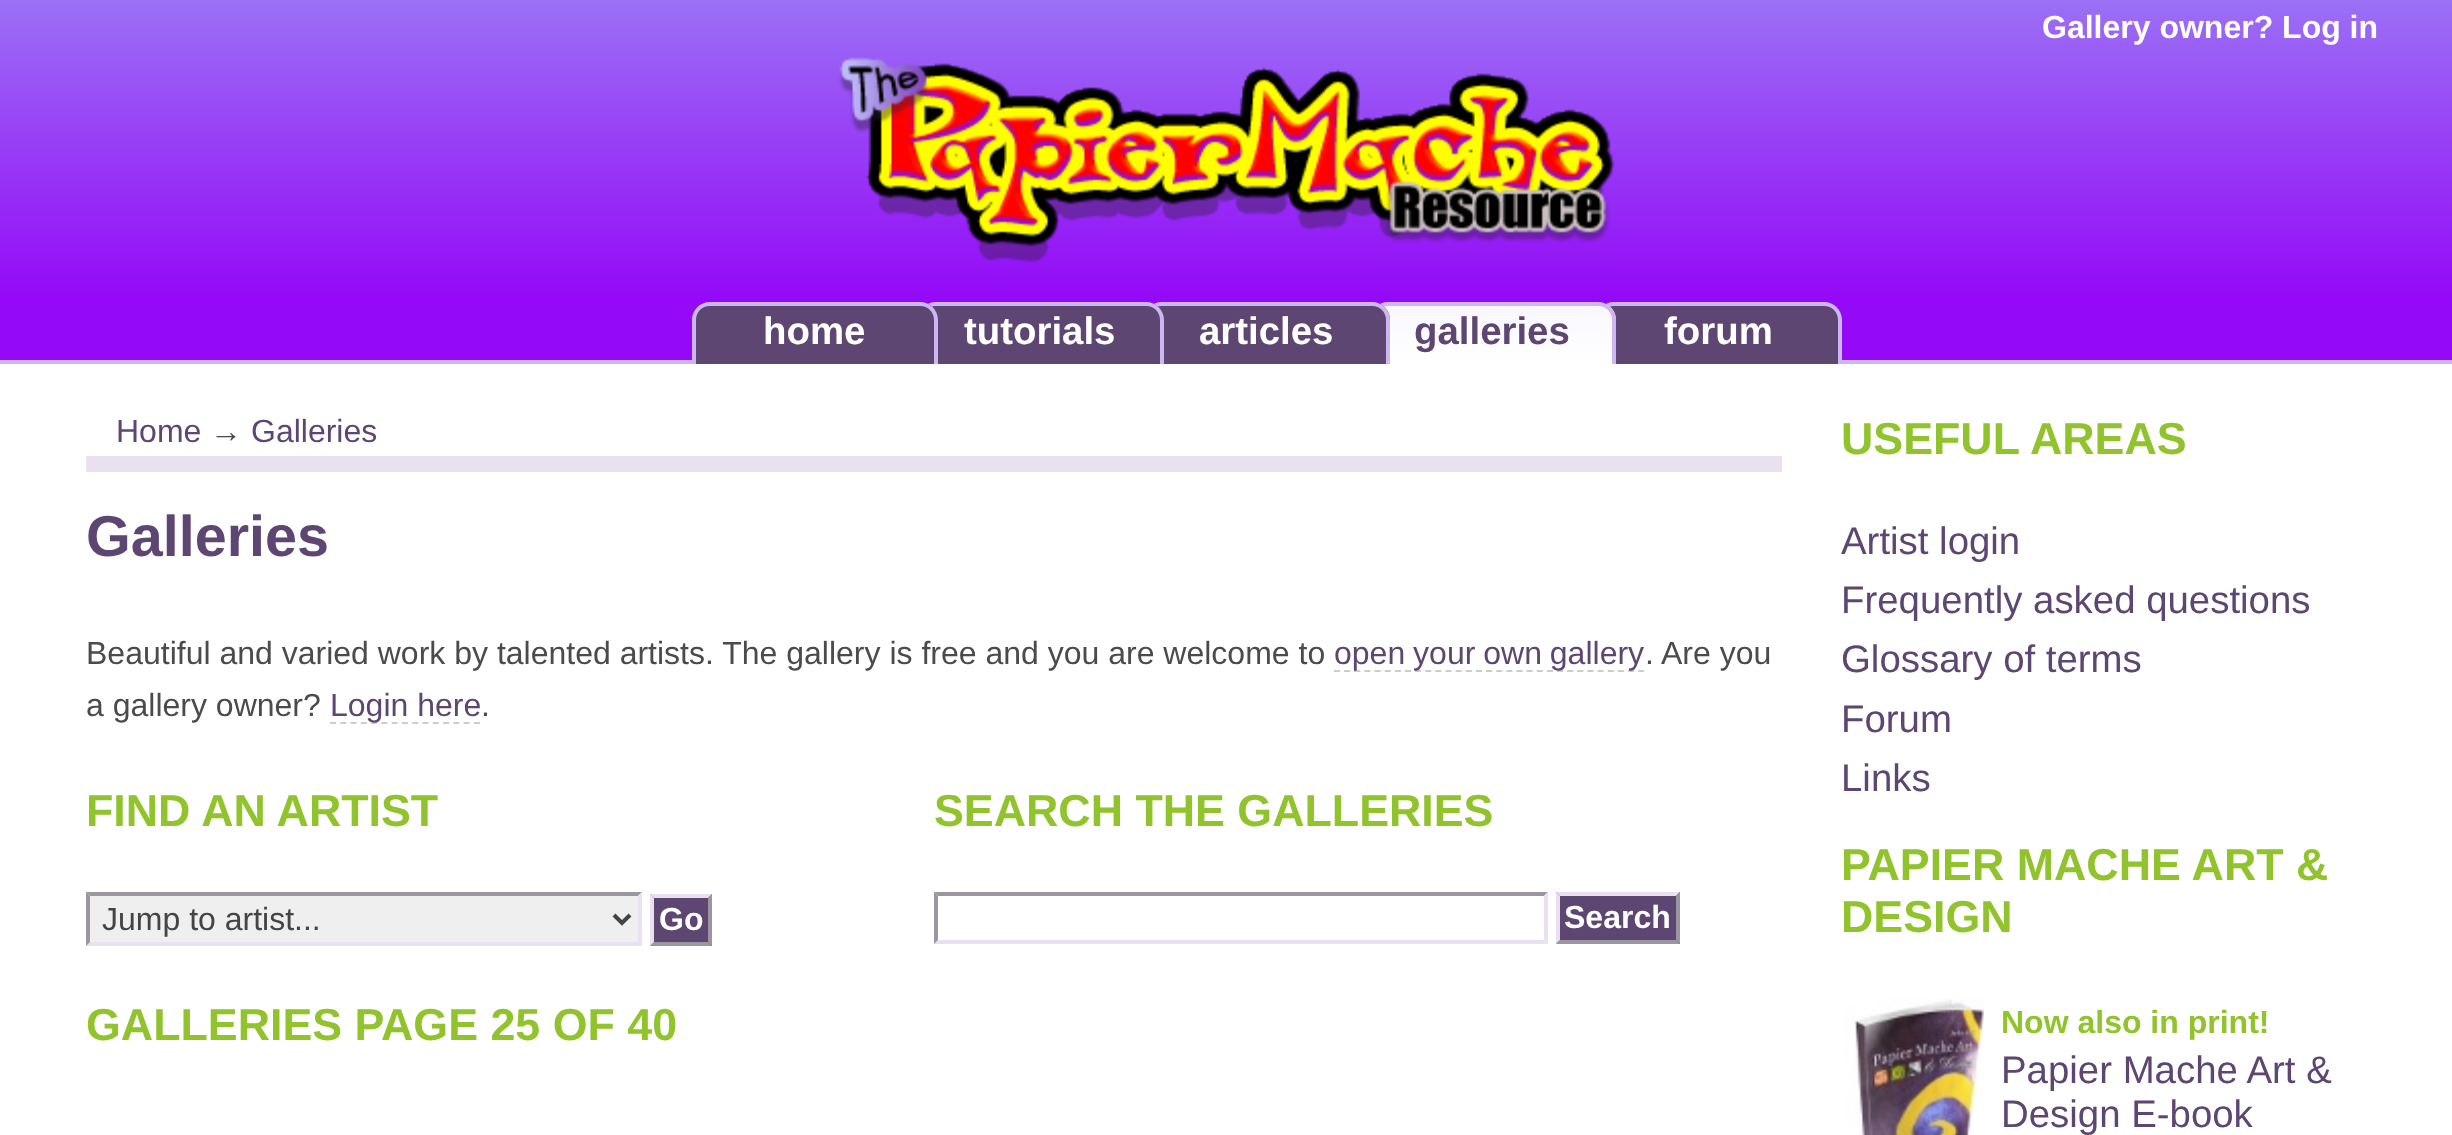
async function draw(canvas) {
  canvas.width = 2452
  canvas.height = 1135
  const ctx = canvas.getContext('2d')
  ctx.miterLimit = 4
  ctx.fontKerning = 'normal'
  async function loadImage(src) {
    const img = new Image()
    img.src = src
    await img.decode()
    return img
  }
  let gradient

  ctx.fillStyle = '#fff'
  ctx.fillRect(0, 0, 2452, 1135)
  gradient = ctx.createLinearGradient(1226, 0, 1226, 300)
  gradient.addColorStop(0, '#9b70f5')
  gradient.addColorStop(1, '#9409f7')
  ctx.fillStyle = gradient
  ctx.fillRect(0, 0, 2452, 300)
  ctx.font = 'bold 32px Liberation Sans'
  ctx.fillStyle = '#fff'
  ctx.fillText('Gallery owner? Log in', 2042, 38)
  ctx.drawImage(await loadImage('image0.png'), 838, 57, 777, 206)
  ctx.fillStyle = '#9409f7'
  ctx.fillRect(0, 300, 2452, 60)
  ctx.fillStyle = '#ccb7f0'
  ctx.fillRect(0, 360, 2452, 4)
  ctx.fillStyle = '#5d4672'
  ctx.beginPath()
  ctx.roundRect(1596, 302, 246, 62, [18, 18, 0, 0])
  ctx.fill()
  ctx.fillStyle = '#ccb7f0'
  ctx.beginPath()
  ctx.moveTo(1614, 302)
  ctx.lineTo(1824, 302)
  ctx.bezierCurveTo(1834, 302, 1842, 310, 1842, 320)
  ctx.lineTo(1842, 364)
  ctx.lineTo(1596, 364)
  ctx.lineTo(1596, 320)
  ctx.bezierCurveTo(1596, 310, 1604, 302, 1614, 302)
  ctx.closePath()
  ctx.moveTo(1614, 306)
  ctx.lineTo(1824, 306)
  ctx.bezierCurveTo(1832, 306, 1838, 312, 1838, 320)
  ctx.lineTo(1838, 364)
  ctx.lineTo(1600, 364)
  ctx.lineTo(1600, 320)
  ctx.bezierCurveTo(1600, 312, 1606, 306, 1614, 306)
  ctx.closePath()
  ctx.fill('evenodd')
  ctx.save()
  ctx.beginPath()
  ctx.roundRect(1370, 302, 246, 62, [18, 18, 0, 0])
  ctx.clip()
  gradient = ctx.createLinearGradient(1493, 306, 1493, 364)
  gradient.addColorStop(0, '#f9f7fe')
  gradient.addColorStop(1, '#fff')
  ctx.fillStyle = gradient
  ctx.fillRect(1383, 306, 233, 58)
  ctx.restore()
  ctx.beginPath()
  ctx.moveTo(1388, 302)
  ctx.lineTo(1598, 302)
  ctx.bezierCurveTo(1608, 302, 1616, 310, 1616, 320)
  ctx.lineTo(1616, 364)
  ctx.lineTo(1370, 364)
  ctx.lineTo(1370, 320)
  ctx.bezierCurveTo(1370, 310, 1378, 302, 1388, 302)
  ctx.closePath()
  ctx.moveTo(1388, 306)
  ctx.lineTo(1598, 306)
  ctx.bezierCurveTo(1606, 306, 1612, 312, 1612, 320)
  ctx.lineTo(1612, 364)
  ctx.lineTo(1374, 364)
  ctx.lineTo(1374, 320)
  ctx.bezierCurveTo(1374, 312, 1380, 306, 1388, 306)
  ctx.closePath()
  ctx.fill('evenodd')
  ctx.fillStyle = '#5d4672'
  ctx.beginPath()
  ctx.roundRect(1144, 302, 246, 62, [18, 18, 0, 0])
  ctx.fill()
  ctx.fillStyle = '#ccb7f0'
  ctx.beginPath()
  ctx.moveTo(1162, 302)
  ctx.lineTo(1372, 302)
  ctx.bezierCurveTo(1382, 302, 1390, 310, 1390, 320)
  ctx.lineTo(1390, 364)
  ctx.lineTo(1144, 364)
  ctx.lineTo(1144, 320)
  ctx.bezierCurveTo(1144, 310, 1152, 302, 1162, 302)
  ctx.closePath()
  ctx.moveTo(1162, 306)
  ctx.lineTo(1372, 306)
  ctx.bezierCurveTo(1380, 306, 1386, 312, 1386, 320)
  ctx.lineTo(1386, 364)
  ctx.lineTo(1148, 364)
  ctx.lineTo(1148, 320)
  ctx.bezierCurveTo(1148, 312, 1154, 306, 1162, 306)
  ctx.closePath()
  ctx.fill('evenodd')
  ctx.fillStyle = '#5d4672'
  ctx.beginPath()
  ctx.roundRect(918, 302, 246, 62, [18, 18, 0, 0])
  ctx.fill()
  ctx.fillStyle = '#ccb7f0'
  ctx.beginPath()
  ctx.moveTo(936, 302)
  ctx.lineTo(1146, 302)
  ctx.bezierCurveTo(1156, 302, 1164, 310, 1164, 320)
  ctx.lineTo(1164, 364)
  ctx.lineTo(918, 364)
  ctx.lineTo(918, 320)
  ctx.bezierCurveTo(918, 310, 926, 302, 936, 302)
  ctx.closePath()
  ctx.moveTo(936, 306)
  ctx.lineTo(1146, 306)
  ctx.bezierCurveTo(1154, 306, 1160, 312, 1160, 320)
  ctx.lineTo(1160, 364)
  ctx.lineTo(922, 364)
  ctx.lineTo(922, 320)
  ctx.bezierCurveTo(922, 312, 928, 306, 936, 306)
  ctx.closePath()
  ctx.fill('evenodd')
  ctx.fillStyle = '#5d4672'
  ctx.beginPath()
  ctx.roundRect(692, 302, 246, 62, [18, 18, 0, 0])
  ctx.fill()
  ctx.fillStyle = '#ccb7f0'
  ctx.beginPath()
  ctx.moveTo(710, 302)
  ctx.lineTo(920, 302)
  ctx.bezierCurveTo(930, 302, 938, 310, 938, 320)
  ctx.lineTo(938, 364)
  ctx.lineTo(692, 364)
  ctx.lineTo(692, 320)
  ctx.bezierCurveTo(692, 310, 700, 302, 710, 302)
  ctx.closePath()
  ctx.moveTo(710, 306)
  ctx.lineTo(920, 306)
  ctx.bezierCurveTo(928, 306, 934, 312, 934, 320)
  ctx.lineTo(934, 364)
  ctx.lineTo(696, 364)
  ctx.lineTo(696, 320)
  ctx.bezierCurveTo(696, 312, 702, 306, 710, 306)
  ctx.closePath()
  ctx.fill('evenodd')
  ctx.font = 'bold 38.4px Liberation Sans'
  ctx.fillStyle = '#fff'
  ctx.fillText('home', 763, 344)
  ctx.fillText('tutorials', 964, 344)
  ctx.fillText('articles', 1199, 344)
  ctx.fillStyle = '#5d4672'
  ctx.fillText('galleries', 1414, 344)
  ctx.fillStyle = '#fff'
  ctx.fillText('forum', 1664, 344)
  ctx.fillStyle = '#e9e1f0'
  ctx.fillRect(86, 456, 1696, 16)
  ctx.font = '32px Liberation Sans'
  ctx.fillStyle = '#5d4672'
  ctx.fillText('Home', 116, 442)
  ctx.fillStyle = '#4b4b4b'
  ctx.fillText('→', 210, 442)
  ctx.fillStyle = '#5d4672'
  ctx.fillText('Galleries', 251, 442)
  ctx.font = 'bold 57.5px Liberation Sans'
  ctx.fillText('Galleries', 86, 556)
  ctx.font = '32px Liberation Sans'
  ctx.fillStyle = '#4b4b4b'
  ctx.fillText('Beautiful and varied work by talented artists. The gallery is free and you are welcome to', 86, 664)
  ctx.beginPath()
  ctx.moveTo(1334, 671)
  ctx.lineTo(1644, 671)
  ctx.strokeStyle = '#ccc'
  ctx.lineWidth = 2
  ctx.setLineDash([6, 4.14])
  ctx.stroke()
  ctx.wordSpacing = '-1px'
  ctx.fillStyle = '#5d4672'
  ctx.fillText('open your own gallery', 1334, 664)
  ctx.wordSpacing = '0px'
  ctx.fillStyle = '#4b4b4b'
  ctx.fillText('.', 1645, 664)
  ctx.fillText('Are you', 1661, 664)
  ctx.fillText('a gallery owner?', 86, 716)
  ctx.beginPath()
  ctx.moveTo(330, 723)
  ctx.lineTo(480, 723)
  ctx.setLineDash([6, 4.28])
  ctx.stroke()
  ctx.fillStyle = '#5d4672'
  ctx.fillText('Login here', 330, 716)
  ctx.fillStyle = '#4b4b4b'
  ctx.fillText('.', 481, 716)
  ctx.font = 'bold 44.75px Liberation Sans'
  ctx.fillStyle = '#90c32c'
  ctx.fillText('FIND AN ARTIST', 86, 826)
  ctx.fillStyle = '#efefef'
  ctx.fillRect(86, 892, 556, 54)
  ctx.fillStyle = '#9b96a0'
  ctx.beginPath()
  ctx.moveTo(86, 892)
  ctx.lineTo(642, 892)
  ctx.lineTo(638, 896)
  ctx.lineTo(90, 896)
  ctx.closePath()
  ctx.fill()
  ctx.fillStyle = '#e9e1f0'
  ctx.beginPath()
  ctx.moveTo(642, 892)
  ctx.lineTo(642, 946)
  ctx.lineTo(638, 942)
  ctx.lineTo(638, 896)
  ctx.closePath()
  ctx.fill()
  ctx.beginPath()
  ctx.moveTo(642, 946)
  ctx.lineTo(86, 946)
  ctx.lineTo(90, 942)
  ctx.lineTo(638, 942)
  ctx.closePath()
  ctx.fill()
  ctx.fillStyle = '#9b96a0'
  ctx.beginPath()
  ctx.moveTo(86, 946)
  ctx.lineTo(86, 892)
  ctx.lineTo(90, 896)
  ctx.lineTo(90, 942)
  ctx.closePath()
  ctx.fill()
  ctx.beginPath()
  ctx.moveTo(614, 915)
  ctx.lineTo(622, 923)
  ctx.lineTo(630, 915)
  ctx.strokeStyle = '#444'
  ctx.lineWidth = 4
  ctx.setLineDash([])
  ctx.stroke()
  ctx.font = '32px Liberation Sans'
  ctx.fillStyle = '#444'
  ctx.fillText('Jump to artist...', 102, 930)
  ctx.fillStyle = '#5d4672'
  ctx.fillRect(650, 894, 62, 52)
  ctx.fillStyle = '#e9e1f0'
  ctx.beginPath()
  ctx.moveTo(650, 894)
  ctx.lineTo(712, 894)
  ctx.lineTo(708, 898)
  ctx.lineTo(654, 898)
  ctx.closePath()
  ctx.fill()
  ctx.fillStyle = '#9b96a0'
  ctx.beginPath()
  ctx.moveTo(712, 894)
  ctx.lineTo(712, 946)
  ctx.lineTo(708, 942)
  ctx.lineTo(708, 898)
  ctx.closePath()
  ctx.fill()
  ctx.beginPath()
  ctx.moveTo(712, 946)
  ctx.lineTo(650, 946)
  ctx.lineTo(654, 942)
  ctx.lineTo(708, 942)
  ctx.closePath()
  ctx.fill()
  ctx.fillStyle = '#e9e1f0'
  ctx.beginPath()
  ctx.moveTo(650, 946)
  ctx.lineTo(650, 894)
  ctx.lineTo(654, 898)
  ctx.lineTo(654, 942)
  ctx.closePath()
  ctx.fill()
  ctx.font = 'bold 32px Liberation Sans'
  ctx.fillStyle = '#fff'
  ctx.fillText('Go', 659, 930)
  ctx.font = 'bold 44.75px Liberation Sans'
  ctx.fillStyle = '#90c32c'
  ctx.fillText('SEARCH THE GALLERIES', 934, 826)
  ctx.fillStyle = '#9b96a0'
  ctx.beginPath()
  ctx.moveTo(934, 892)
  ctx.lineTo(1548, 892)
  ctx.lineTo(1544, 896)
  ctx.lineTo(938, 896)
  ctx.closePath()
  ctx.fill()
  ctx.fillStyle = '#e9e1f0'
  ctx.beginPath()
  ctx.moveTo(1548, 892)
  ctx.lineTo(1548, 944)
  ctx.lineTo(1544, 940)
  ctx.lineTo(1544, 896)
  ctx.closePath()
  ctx.fill()
  ctx.beginPath()
  ctx.moveTo(1548, 944)
  ctx.lineTo(934, 944)
  ctx.lineTo(938, 940)
  ctx.lineTo(1544, 940)
  ctx.closePath()
  ctx.fill()
  ctx.fillStyle = '#9b96a0'
  ctx.beginPath()
  ctx.moveTo(934, 944)
  ctx.lineTo(934, 892)
  ctx.lineTo(938, 896)
  ctx.lineTo(938, 940)
  ctx.closePath()
  ctx.fill()
  ctx.fillStyle = '#5d4672'
  ctx.fillRect(1556, 892, 124, 52)
  ctx.fillStyle = '#e9e1f0'
  ctx.beginPath()
  ctx.moveTo(1556, 892)
  ctx.lineTo(1680, 892)
  ctx.lineTo(1676, 896)
  ctx.lineTo(1560, 896)
  ctx.closePath()
  ctx.fill()
  ctx.fillStyle = '#9b96a0'
  ctx.beginPath()
  ctx.moveTo(1680, 892)
  ctx.lineTo(1680, 944)
  ctx.lineTo(1676, 940)
  ctx.lineTo(1676, 896)
  ctx.closePath()
  ctx.fill()
  ctx.beginPath()
  ctx.moveTo(1680, 944)
  ctx.lineTo(1556, 944)
  ctx.lineTo(1560, 940)
  ctx.lineTo(1676, 940)
  ctx.closePath()
  ctx.fill()
  ctx.fillStyle = '#e9e1f0'
  ctx.beginPath()
  ctx.moveTo(1556, 944)
  ctx.lineTo(1556, 892)
  ctx.lineTo(1560, 896)
  ctx.lineTo(1560, 940)
  ctx.closePath()
  ctx.fill()
  ctx.font = 'bold 32px Liberation Sans'
  ctx.fillStyle = '#fff'
  ctx.fillText('Search', 1564, 928)
  ctx.font = 'bold 44.75px Liberation Sans'
  ctx.fillStyle = '#90c32c'
  ctx.fillText('GALLERIES PAGE 25 OF 40', 86, 1040)
  ctx.fillText('USEFUL AREAS', 1841, 454)
  ctx.font = '38.4px Liberation Sans'
  ctx.fillStyle = '#5d4672'
  ctx.fillText('Artist login', 1841, 554)
  ctx.fillText('Frequently asked questions', 1841, 613)
  ctx.fillText('Glossary of terms', 1841, 672)
  ctx.fillText('Forum', 1841, 732)
  ctx.fillText('Links', 1841, 791)
  ctx.font = 'bold 44.75px Liberation Sans'
  ctx.fillStyle = '#90c32c'
  ctx.fillText('PAPIER MACHE ART &', 1841, 880)
  ctx.fillText('DESIGN', 1841, 932)
  ctx.drawImage(await loadImage('image1.png'), 1844, 998, 140, 137)
  ctx.font = 'bold 32px Liberation Sans'
  ctx.fillText('Now also in print!', 2001, 1033)
  ctx.font = '38.4px Liberation Sans'
  ctx.fillStyle = '#5d4672'
  ctx.fillText('Papier Mache Art &', 2001, 1083)
  ctx.fillText('Design E-book', 2001, 1127)
}

draw(document.querySelector('canvas'))
